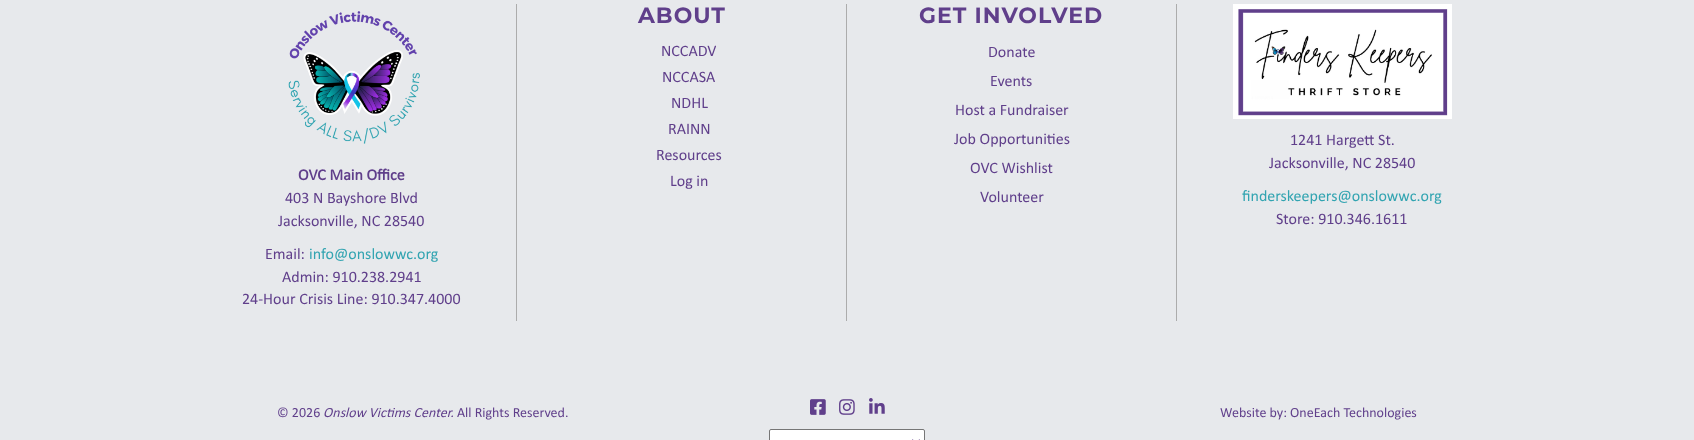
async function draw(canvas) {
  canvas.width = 1694
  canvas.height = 440
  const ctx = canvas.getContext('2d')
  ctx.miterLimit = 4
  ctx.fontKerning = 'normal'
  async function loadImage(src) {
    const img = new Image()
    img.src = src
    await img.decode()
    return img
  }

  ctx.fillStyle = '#e7e9ec'
  ctx.fillRect(0, 0, 1694, 440)
  ctx.fillStyle = '#acacac'
  ctx.fillRect(516, 4, 1, 317)
  ctx.drawImage(await loadImage('image0.png'), 288, 11, 132, 133)
  ctx.font = 'bold 16px Calibri'
  ctx.fillStyle = '#603f8b'
  ctx.fillText('OVC Main Office', 298, 180)
  ctx.font = '16px Calibri'
  ctx.fillText('403 N Bayshore Blvd', 285, 203)
  ctx.fillText('Jacksonville, NC 28540', 278, 226)
  ctx.fillText('Email:', 265, 259)
  ctx.fillStyle = '#32a4b1'
  ctx.fillText('info@onslowwc.org', 309, 259)
  ctx.fillStyle = '#603f8b'
  ctx.fillText('Admin: 910.238.2941', 282, 282)
  ctx.fillText('24-Hour Crisis Line: 910.347.4000', 242, 304)
  ctx.fillStyle = '#acacac'
  ctx.fillRect(846, 4, 1, 317)
  ctx.letterSpacing = '1px'
  ctx.font = 'bold 22px Montserrat'
  ctx.fillStyle = '#603f8b'
  ctx.fillText('ABOUT', 638, 23)
  ctx.letterSpacing = '0px'
  ctx.font = '16px Calibri'
  ctx.fillText('NCCADV', 661, 56)
  ctx.fillText('NCCASA', 662, 82)
  ctx.fillText('NDHL', 671, 108)
  ctx.fillText('RAINN', 668, 134)
  ctx.fillText('Resources', 656, 160)
  ctx.fillText('Log in', 670, 186)
  ctx.fillStyle = '#acacac'
  ctx.fillRect(1176, 4, 1, 317)
  ctx.letterSpacing = '1px'
  ctx.font = 'bold 22px Montserrat'
  ctx.fillStyle = '#603f8b'
  ctx.fillText('GET INVOLVED', 919, 23)
  ctx.letterSpacing = '0px'
  ctx.font = '16px Calibri'
  ctx.fillText('Donate', 988, 57)
  ctx.fillText('Events', 990, 86)
  ctx.fillText('Host a Fundraiser', 955, 115)
  ctx.fillText('Job Opportunities', 954, 144)
  ctx.fillText('OVC Wishlist', 970, 173)
  ctx.fillText('Volunteer', 980, 202)
  ctx.drawImage(await loadImage('image1.png'), 1233, 4, 219, 115)
  ctx.fillText('1241 Hargett St.', 1290, 145)
  ctx.fillText('Jacksonville, NC 28540', 1269, 168)
  ctx.fillStyle = '#32a4b1'
  ctx.fillText('finderskeepers@onslowwc.org', 1242, 201)
  ctx.fillStyle = '#603f8b'
  ctx.fillText('Store: 910.346.1611', 1276, 224)
  ctx.font = '14px Calibri'
  ctx.fillText('© 2026', 277, 417)
  ctx.font = 'italic 14px Calibri'
  ctx.fillText('Onslow Victims Center.', 323, 417)
  ctx.font = '14px Calibri'
  ctx.fillText('All Rights Reserved.', 457, 417)
  ctx.drawImage(await loadImage('image2.png'), 810, 399, 16, 16)
  ctx.drawImage(await loadImage('image3.png'), 839, 399, 16, 16)
  ctx.drawImage(await loadImage('image4.png'), 869, 398, 16, 16)
  ctx.fillStyle = '#fff'
  ctx.beginPath()
  ctx.roundRect(769.5, 429.5, 155, 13, 1.5)
  ctx.fill()
  ctx.strokeStyle = '#767676'
  ctx.stroke()
  ctx.beginPath()
  ctx.moveTo(912, 440)
  ctx.lineTo(916, 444)
  ctx.lineTo(920, 440)
  ctx.strokeStyle = '#603f8b'
  ctx.lineWidth = 2
  ctx.stroke()
  ctx.fillStyle = '#603f8b'
  ctx.fillText('Website by: OneEach Technologies', 1220, 417)
}

draw(document.querySelector('canvas'))
